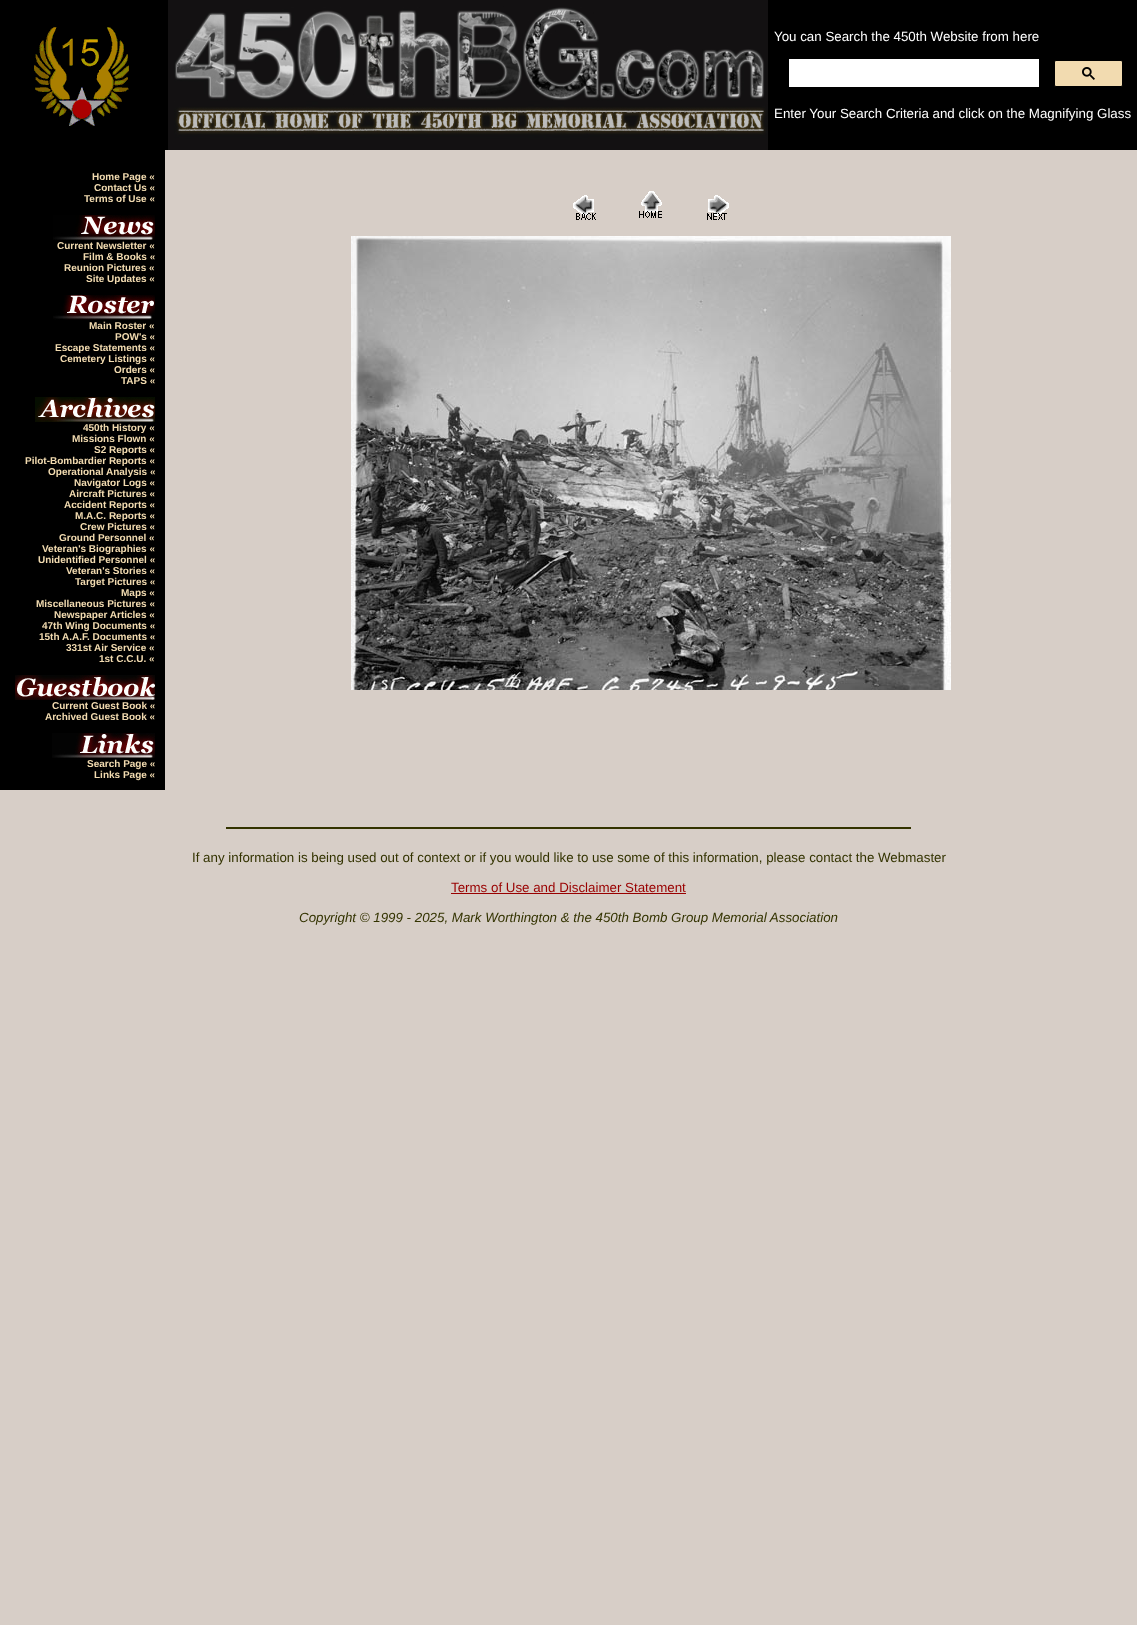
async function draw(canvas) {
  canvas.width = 1137
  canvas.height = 1625
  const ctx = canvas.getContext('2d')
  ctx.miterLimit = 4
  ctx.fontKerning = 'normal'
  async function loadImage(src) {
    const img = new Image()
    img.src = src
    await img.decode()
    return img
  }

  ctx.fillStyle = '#d7cec7'
  ctx.fillRect(0, 0, 1137, 1625)
  ctx.fillStyle = '#000'
  ctx.fillRect(0, 0, 1137, 150)
  ctx.drawImage(await loadImage('image0.png'), 34, 27, 95, 99)
  ctx.drawImage(await loadImage('image1.png'), 168, 0, 600, 150)
  ctx.font = '13.33px Liberation Sans'
  ctx.fillStyle = '#fff'
  ctx.fillText('You can Search the 450th Website from here', 774, 41)
  ctx.fillRect(789, 59, 250, 28)
  ctx.fillStyle = '#f2dbb0'
  ctx.beginPath()
  ctx.roundRect(1054.5, 60.5, 68, 26, 1.5)
  ctx.fill()
  ctx.strokeStyle = '#000'
  ctx.stroke()
  ctx.drawImage(await loadImage('image2.png'), 1082, 67, 13, 13)
  ctx.fillStyle = '#fff'
  ctx.fillText('Enter Your Search Criteria and click on the Magnifying Glass', 774, 118)
  ctx.fillStyle = '#000'
  ctx.fillRect(0, 150, 165, 640)
  ctx.font = 'bold 10px Liberation Sans'
  ctx.fillStyle = '#f2dbb0'
  ctx.fillText('Home Page «', 92, 180)
  ctx.fillText('Contact Us «', 94, 191)
  ctx.fillText('Terms of Use «', 84, 202)
  ctx.drawImage(await loadImage('image3.png'), 53, 215, 102, 25)
  ctx.fillText('Current Newsletter «', 57, 249)
  ctx.fillText('Film & Books «', 83, 260)
  ctx.fillText('Reunion Pictures «', 64, 271)
  ctx.fillText('Site Updates «', 86, 282)
  ctx.drawImage(await loadImage('image4.png'), 53, 295, 102, 25)
  ctx.fillText('Main Roster «', 89, 329)
  ctx.fillText('POW\'s «', 115, 340)
  ctx.fillText('Escape Statements «', 55, 351)
  ctx.fillText('Cemetery Listings «', 60, 362)
  ctx.fillText('Orders «', 114, 373)
  ctx.fillText('TAPS «', 121, 384)
  ctx.drawImage(await loadImage('image5.png'), 35, 397, 120, 25)
  ctx.fillText('450th History «', 83, 431)
  ctx.fillText('Missions Flown «', 72, 442)
  ctx.fillText('S2 Reports «', 94, 453)
  ctx.fillText('Pilot-Bombardier Reports «', 25, 464)
  ctx.fillText('Operational Analysis «', 48, 475)
  ctx.fillText('Navigator Logs «', 74, 486)
  ctx.fillText('Aircraft Pictures «', 69, 497)
  ctx.fillText('Accident Reports «', 64, 508)
  ctx.fillText('M.A.C. Reports «', 75, 519)
  ctx.fillText('Crew Pictures «', 80, 530)
  ctx.fillText('Ground Personnel «', 59, 541)
  ctx.fillText('Veteran\'s Biographies «', 42, 552)
  ctx.fillText('Unidentified Personnel «', 38, 563)
  ctx.fillText('Veteran\'s Stories «', 66, 574)
  ctx.fillText('Target Pictures «', 75, 585)
  ctx.fillText('Maps «', 121, 596)
  ctx.fillText('Miscellaneous Pictures «', 36, 607)
  ctx.fillText('Newspaper Articles «', 54, 618)
  ctx.fillText('47th Wing Documents «', 42, 629)
  ctx.fillText('15th A.A.F. Documents «', 39, 640)
  ctx.fillText('331st Air Service «', 66, 651)
  ctx.fillText('1st C.C.U. «', 99, 662)
  ctx.drawImage(await loadImage('image6.png'), 15, 675, 140, 25)
  ctx.fillText('Current Guest Book «', 52, 709)
  ctx.fillText('Archived Guest Book «', 45, 720)
  ctx.drawImage(await loadImage('image7.png'), 52, 733, 103, 25)
  ctx.fillText('Search Page «', 87, 767)
  ctx.fillText('Links Page «', 94, 778)
  ctx.drawImage(await loadImage('image8.png'), 573, 195, 23, 25)
  ctx.drawImage(await loadImage('image9.png'), 639, 191, 23, 27)
  ctx.drawImage(await loadImage('image10.png'), 707, 195, 22, 25)
  ctx.drawImage(await loadImage('image11.png'), 351, 236, 600, 454)
  ctx.fillStyle = '#330'
  ctx.fillRect(226, 827, 685, 2)
  ctx.font = '13.33px Liberation Sans'
  ctx.fillText('If any information is being used out of context or if you would like to use some of this information, please contact the Webmaster', 192, 862)
  ctx.fillStyle = '#900'
  ctx.fillText('Terms of Use and Disclaimer Statement', 451, 892)
  ctx.fillRect(451, 893, 235, 1)
  ctx.font = 'italic 13.33px Liberation Sans'
  ctx.fillStyle = '#330'
  ctx.fillText('Copyright © 1999 - 2025, Mark Worthington & the 450th Bomb Group Memorial Association', 299, 922)
}

draw(document.querySelector('canvas'))
